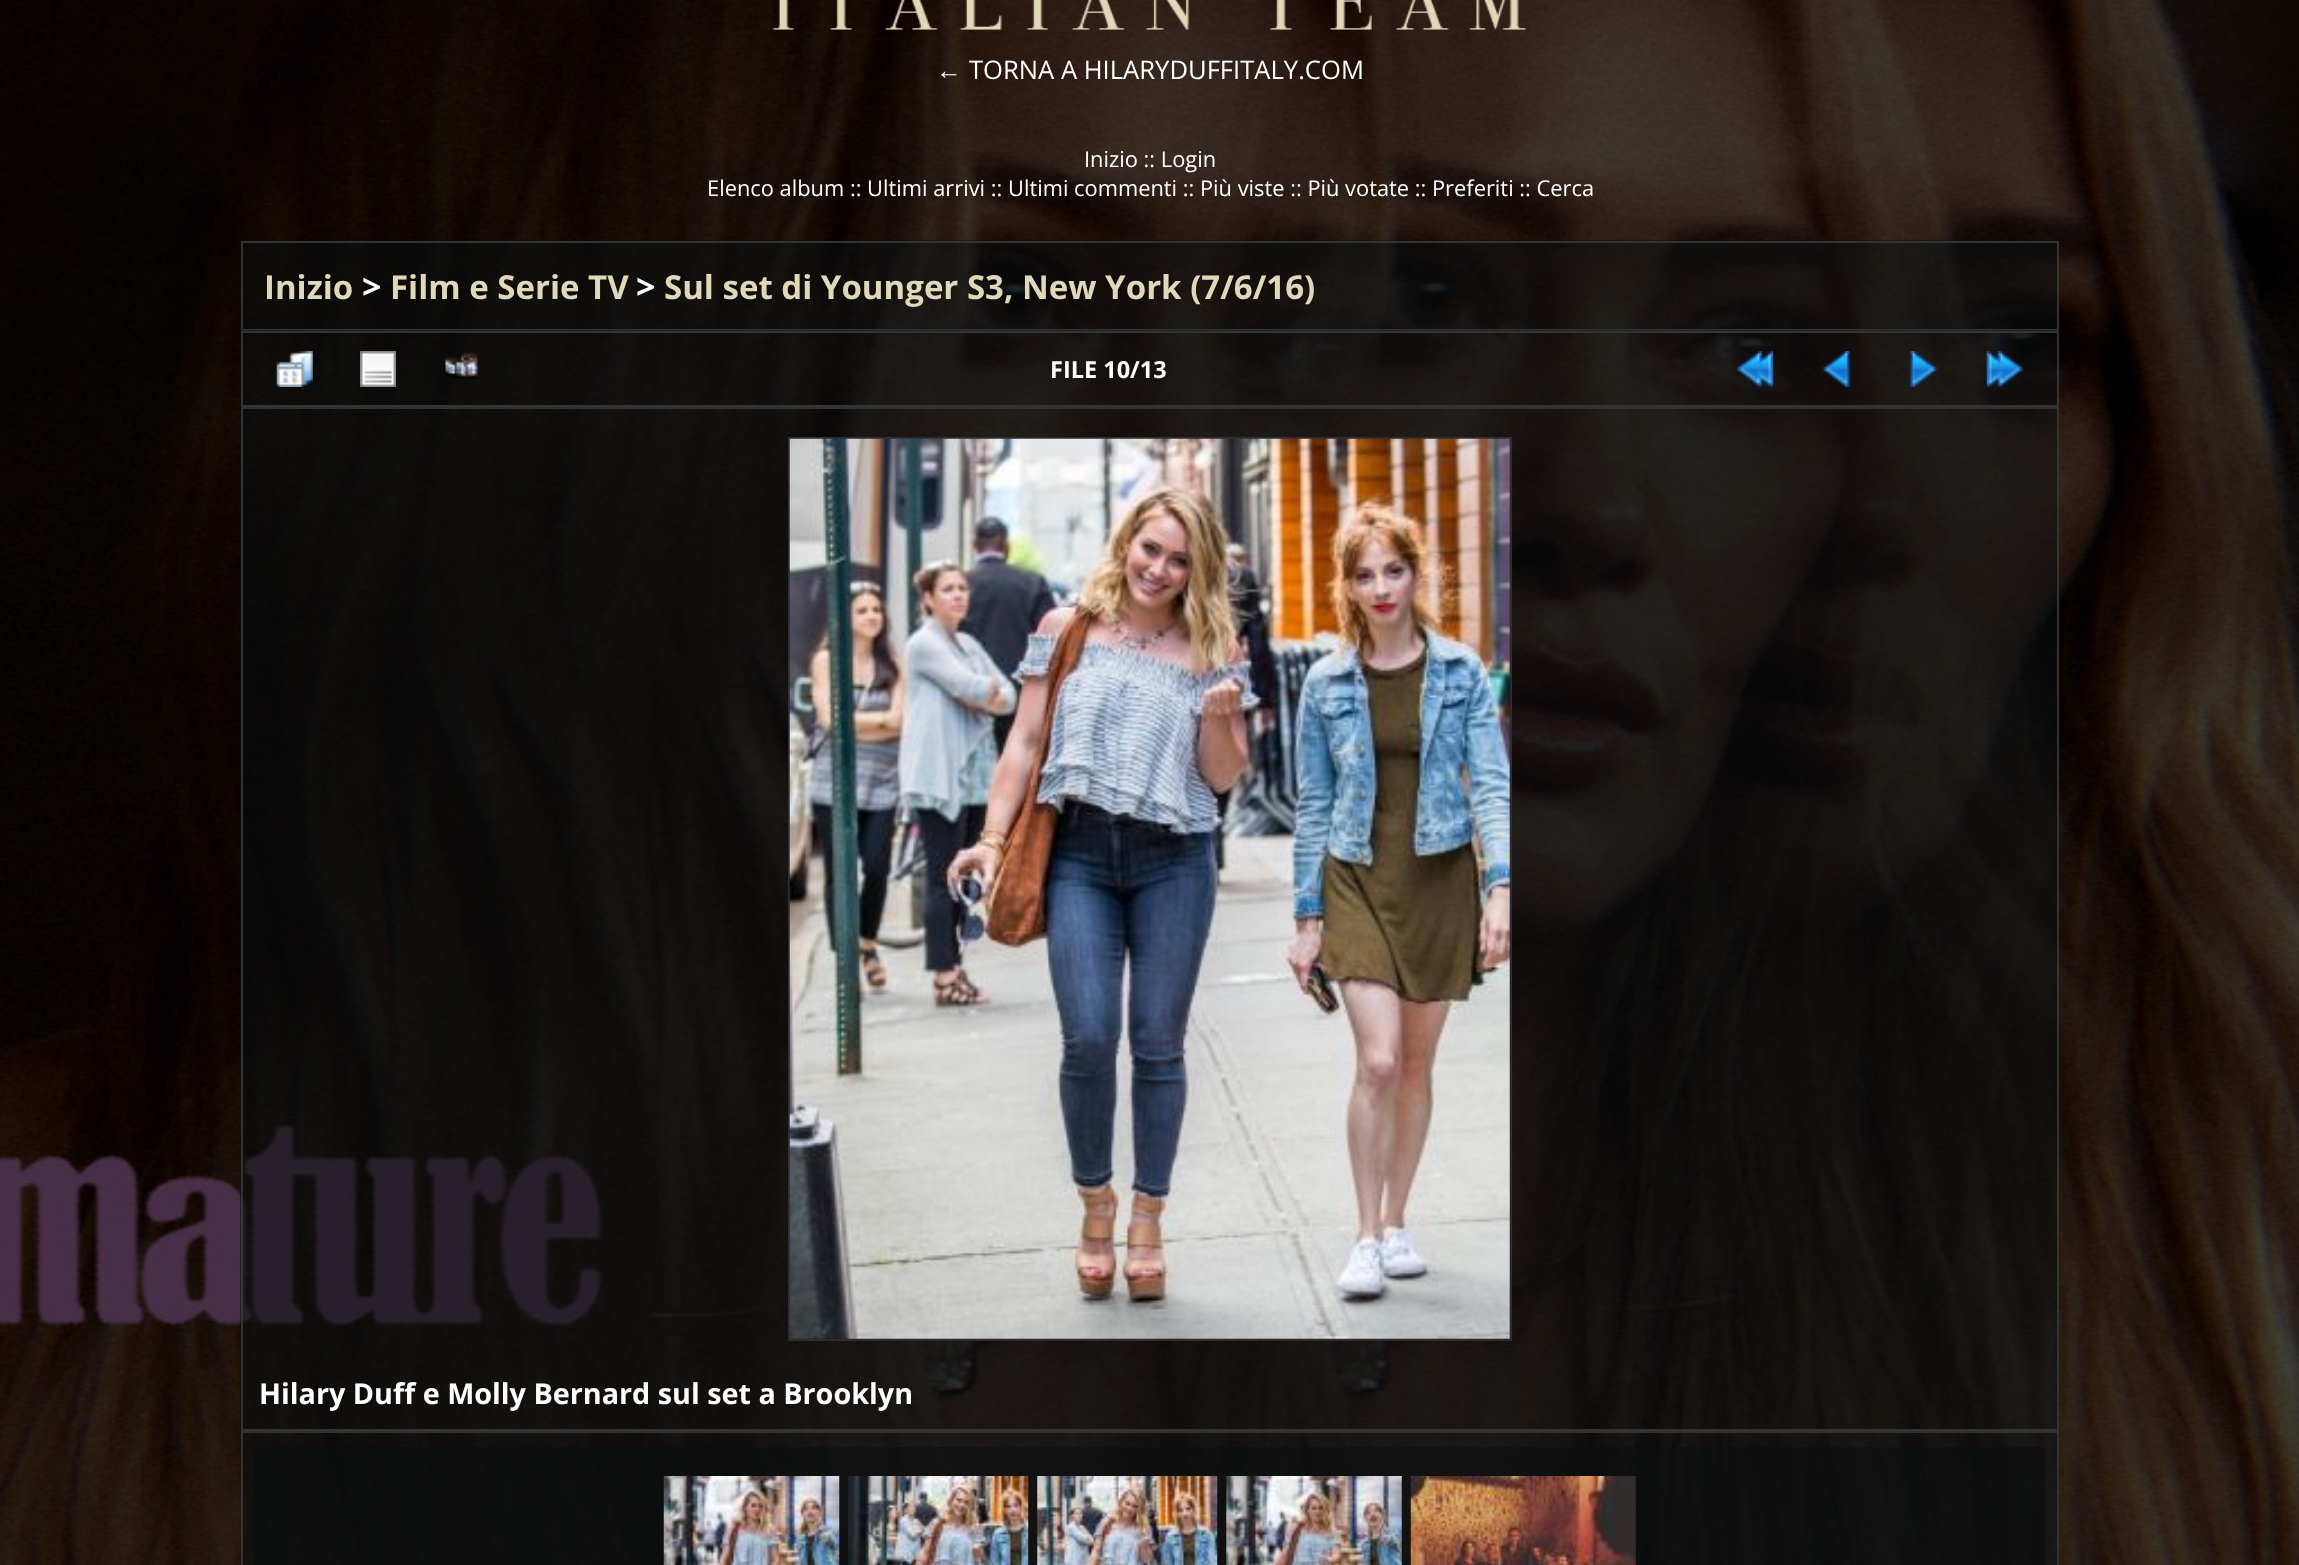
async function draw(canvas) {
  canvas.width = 2299
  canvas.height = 1565
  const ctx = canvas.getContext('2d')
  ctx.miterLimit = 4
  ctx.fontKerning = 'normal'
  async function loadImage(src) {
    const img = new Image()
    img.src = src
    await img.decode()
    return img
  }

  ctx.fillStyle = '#fff'
  ctx.fillRect(0, 0, 2299, 1565)
  ctx.drawImage(await loadImage('image0.png'), 0, 0, 2299, 1565)
  ctx.drawImage(await loadImage('image1.png'), 772, 0, 754, 30)
  ctx.font = '25.6px Liberation Sans'
  ctx.fillText('←', 936, 79)
  ctx.font = '25.6px Open Sans'
  ctx.fillText('TORNA A HILARYDUFFITALY.COM', 969, 79)
  ctx.font = '21.85px Open Sans'
  ctx.fillText('Inizio :: Login', 1084, 167)
  ctx.fillText('Elenco album :: Ultimi arrivi :: Ultimi commenti :: Più viste :: Più votate :: Preferiti :: Cerca', 707, 196)
  ctx.fillStyle = '#080e107d'
  ctx.fillRect(241, 240, 1818, 89)
  ctx.strokeStyle = '#333'
  ctx.lineWidth = 2
  ctx.strokeRect(242, 242, 1816, 88)
  ctx.font = 'bold 33px Open Sans'
  ctx.fillStyle = '#e1d8b9'
  ctx.fillText('Inizio', 264, 299)
  ctx.font = 'bold 34px Open Sans'
  ctx.fillStyle = '#fff'
  ctx.fillText('>', 362, 299)
  ctx.font = 'bold 33px Open Sans'
  ctx.fillStyle = '#e1d8b9'
  ctx.fillText('Film e Serie TV', 390, 299)
  ctx.font = 'bold 34px Open Sans'
  ctx.fillStyle = '#fff'
  ctx.fillText('>', 636, 299)
  ctx.font = 'bold 33px Open Sans'
  ctx.fillStyle = '#e1d8b9'
  ctx.fillText('Sul set di Younger S3, New York (7/6/16)', 664, 299)
  ctx.fillStyle = '#080e107d'
  ctx.fillRect(241, 330, 1818, 75)
  ctx.strokeRect(242, 332, 1816, 74)
  ctx.drawImage(await loadImage('image2.png'), 276, 351, 37, 36)
  ctx.drawImage(await loadImage('image3.png'), 360, 351, 36, 36)
  ctx.drawImage(await loadImage('image4.png'), 443, 352, 35, 27)
  ctx.font = 'bold 23.5px Open Sans'
  ctx.fillStyle = '#fff'
  ctx.fillText('FILE 10/13', 1050, 378)
  ctx.drawImage(await loadImage('image5.png'), 1737, 351, 36, 36)
  ctx.drawImage(await loadImage('image6.png'), 1822, 351, 29, 36)
  ctx.drawImage(await loadImage('image7.png'), 1909, 351, 29, 36)
  ctx.drawImage(await loadImage('image8.png'), 1986, 351, 37, 36)
  ctx.fillStyle = '#080e107d'
  ctx.fillRect(240, 407, 1817, 1024)
  ctx.strokeRect(242, 408, 1816, 1022)
  ctx.strokeStyle = '#2d2c33'
  ctx.strokeRect(789, 438, 722, 902)
  ctx.drawImage(await loadImage('image9.png'), 789, 438, 721, 901)
  ctx.font = 'bold 28.75px Open Sans'
  ctx.fillStyle = '#fff'
  ctx.fillText('Hilary Duff e Molly Bernard sul set a Brooklyn', 259, 1404)
  ctx.fillStyle = '#080e107d'
  ctx.beginPath()
  ctx.rect(242, 1432, 1816, 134)
  ctx.fill()
  ctx.strokeStyle = '#333'
  ctx.stroke()
  ctx.fillRect(254, 1447, 1791, 118)
  ctx.drawImage(await loadImage('image10.png'), 663, 1476, 177, 89)
  ctx.drawImage(await loadImage('image11.png'), 848, 1476, 181, 89)
  ctx.drawImage(await loadImage('image12.png'), 1037, 1476, 181, 89)
  ctx.drawImage(await loadImage('image13.png'), 1226, 1476, 176, 89)
  ctx.drawImage(await loadImage('image14.png'), 1410, 1476, 226, 89)
}

draw(document.querySelector('canvas'))
